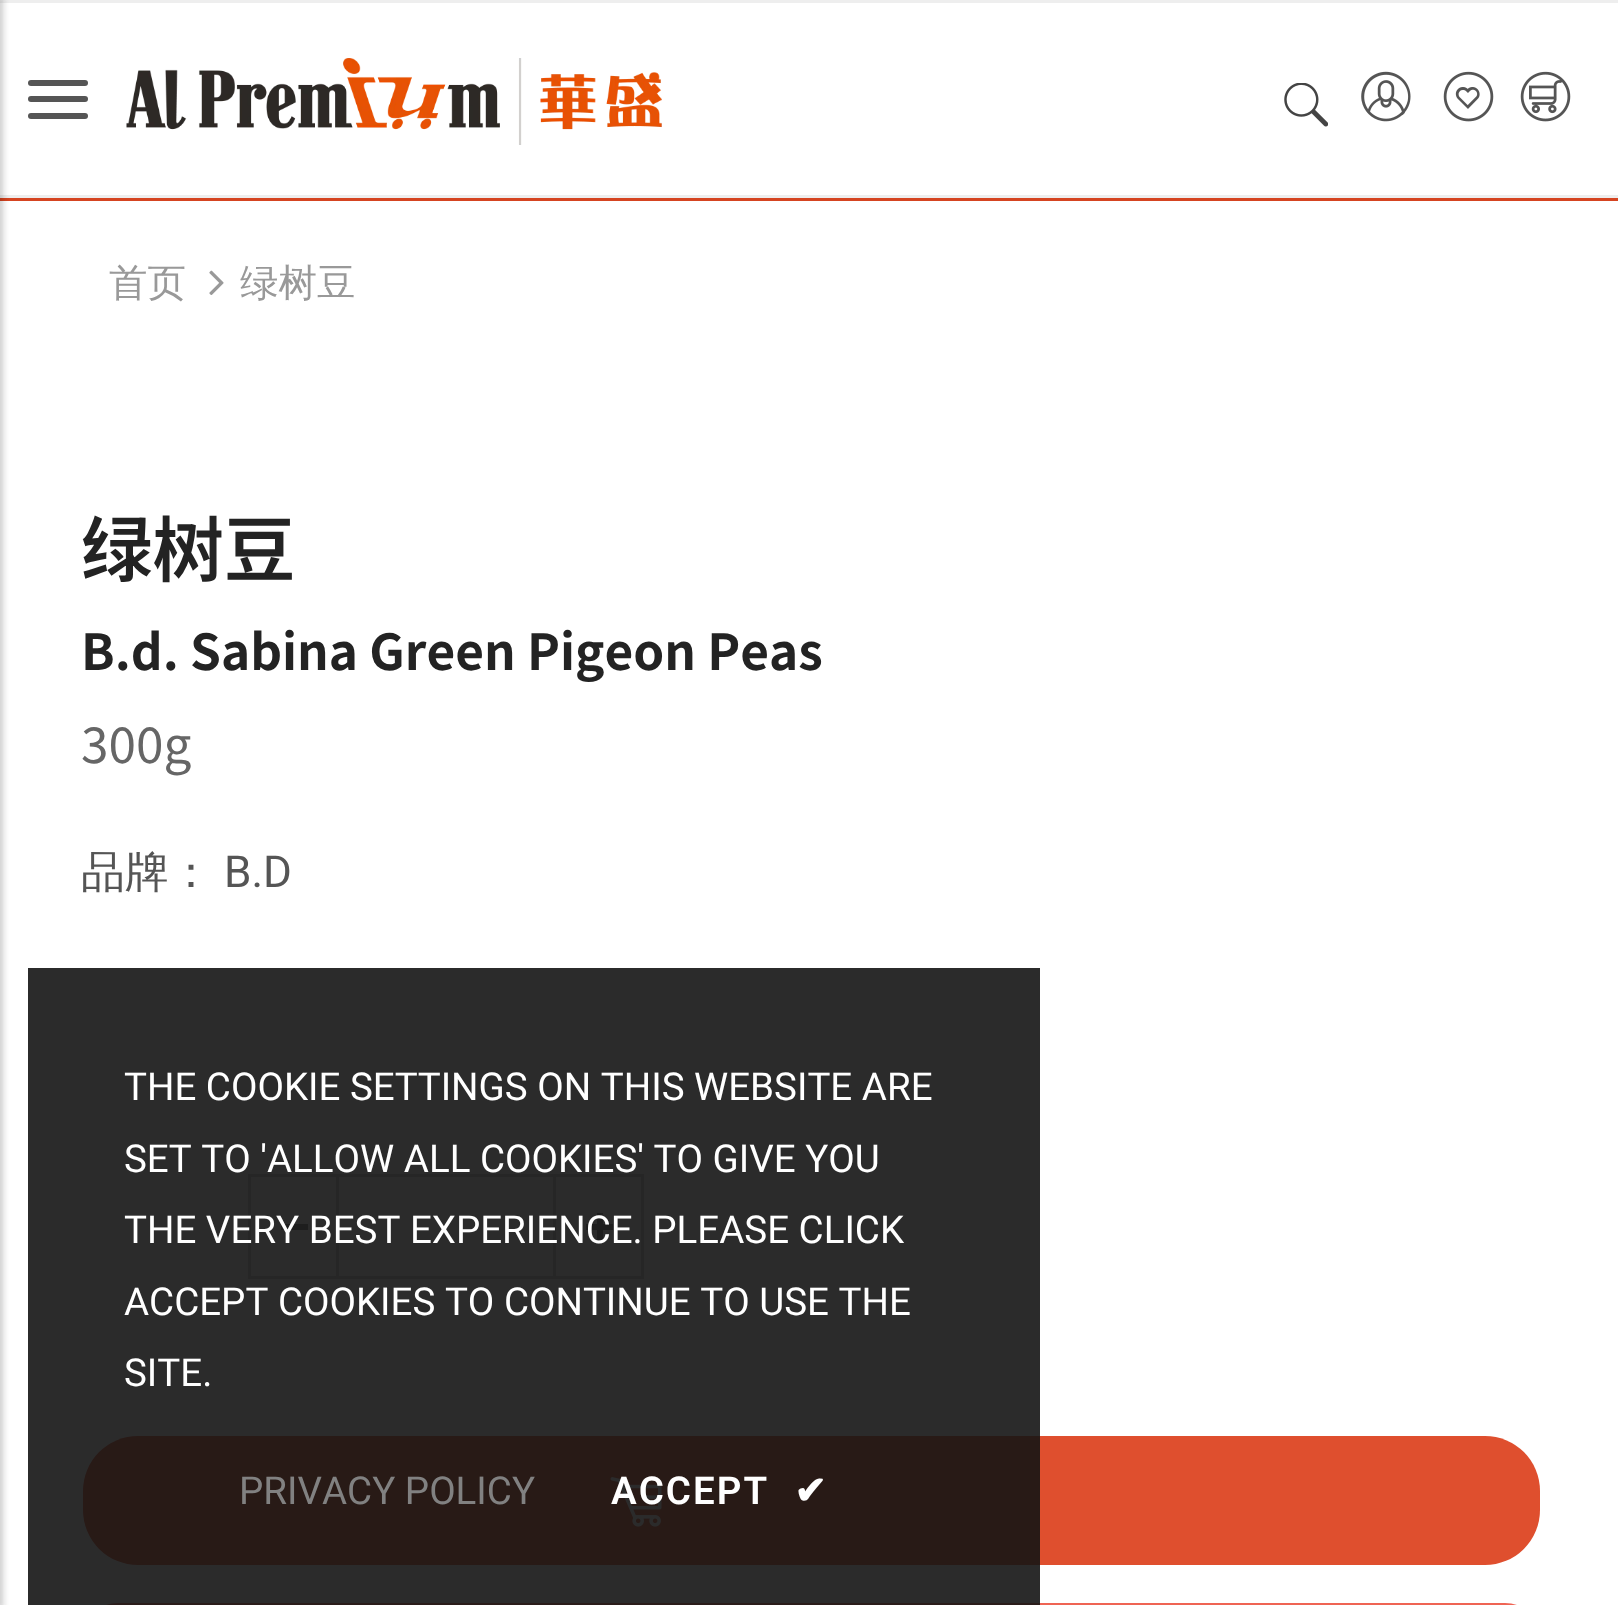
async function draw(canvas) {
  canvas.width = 1618
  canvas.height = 1605
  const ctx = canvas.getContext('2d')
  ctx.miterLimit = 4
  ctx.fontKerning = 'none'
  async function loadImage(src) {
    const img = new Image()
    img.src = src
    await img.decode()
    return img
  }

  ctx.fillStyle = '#fff'
  ctx.fillRect(0, 0, 1618, 1605)
  ctx.fillStyle = '#d54421'
  ctx.fillRect(0, 198, 1618, 3)
  ctx.fillStyle = '#eee'
  ctx.fillRect(0, 0, 1618, 3)
  ctx.fillRect(0, 195, 1618, 3)
  ctx.fillStyle = '#555'
  ctx.beginPath()
  ctx.roundRect(28, 80, 60, 6, 3)
  ctx.fill()
  ctx.beginPath()
  ctx.roundRect(28, 96, 60, 6, 3)
  ctx.fill()
  ctx.beginPath()
  ctx.roundRect(28, 113, 60, 6, 3)
  ctx.fill()
  ctx.drawImage(await loadImage('image0.png'), 126, 58, 536, 87)
  ctx.drawImage(await loadImage('image1.png'), 1284, 83, 44, 44)
  ctx.drawImage(await loadImage('image2.png'), 1361, 71, 50, 51)
  ctx.drawImage(await loadImage('image3.png'), 1443, 71, 51, 51)
  ctx.drawImage(await loadImage('image4.png'), 1520, 71, 51, 51)
  ctx.fillStyle = '#0000001a'
  ctx.filter = 'blur(3px)'
  ctx.beginPath()
  ctx.rect(-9, -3, 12, 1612)
  ctx.fill()
  ctx.filter = 'none'
  ctx.filter = 'blur(3px)'
  ctx.beginPath()
  ctx.rect(-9, -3, 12, 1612)
  ctx.fill()
  ctx.filter = 'none'
  ctx.font = '500 38.5px WenQuanYi Zen Hei'
  ctx.fillStyle = '#999'
  ctx.fillText('首页', 109, 296)
  ctx.drawImage(await loadImage('image5.png'), 209, 270, 15, 25)
  ctx.fillText('绿树豆', 240, 296)
  ctx.font = '600 71.5px Noto Sans SC'
  ctx.fillStyle = '#232323'
  ctx.fillText('绿树豆', 81, 576)
  ctx.font = 'bold 49.5px Noto Sans SC'
  ctx.fillText('B.d. Sabina Green Pigeon Peas', 81, 670)
  ctx.font = '49.5px Noto Sans SC'
  ctx.fillStyle = '#666'
  ctx.fillText('300g', 81, 763)
  ctx.font = '500 44px WenQuanYi Zen Hei'
  ctx.fillStyle = '#555'
  ctx.fillText('品牌：', 81, 887)
  ctx.font = '44px Roboto'
  ctx.fillText('B.D', 224, 887)
  ctx.strokeStyle = '#cbcbcb'
  ctx.lineWidth = 3
  ctx.strokeRect(249.5, 1175.5, 393, 102)
  ctx.fillStyle = '#cbcbcb'
  ctx.fillRect(336, 1177, 3, 99)
  ctx.fillStyle = '#7b7b7b'
  ctx.fillRect(281, 1224, 27, 6)
  ctx.fillStyle = '#cbcbcb'
  ctx.fillRect(553, 1177, 3, 99)
  ctx.fillStyle = '#7b7b7b'
  ctx.fillRect(586, 1224, 27, 6)
  ctx.fillRect(597, 1213, 6, 27)
  ctx.fillStyle = '#df4f2e'
  ctx.beginPath()
  ctx.roundRect(83, 1436, 1457, 129, 55)
  ctx.fill()
  ctx.drawImage(await loadImage('image6.png'), 610, 1477, 52, 50)
  ctx.beginPath()
  ctx.roundRect(84.5, 1604.5, 1454, 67, 63.5)
  ctx.strokeStyle = '#ef6454'
  ctx.stroke()
  ctx.fillStyle = '#141414e6'
  ctx.fillRect(28, 968, 1012, 637)
  ctx.font = '38.5px Roboto'
  ctx.fillStyle = '#fff'
  ctx.fillText('THE COOKIE SETTINGS ON THIS WEBSITE ARE', 124, 1100)
  ctx.fillText('SET TO \'ALLOW ALL COOKIES\' TO GIVE YOU', 124, 1172)
  ctx.fillText('THE VERY BEST EXPERIENCE. PLEASE CLICK', 124, 1243)
  ctx.fillText('ACCEPT COOKIES TO CONTINUE TO USE THE', 124, 1315)
  ctx.fillText('SITE.', 124, 1386)
  ctx.fillStyle = '#818181'
  ctx.fillText('PRIVACY POLICY', 239, 1504)
  ctx.letterSpacing = '2px'
  ctx.font = '600 38.5px Roboto'
  ctx.fillStyle = '#fff'
  ctx.fillText('ACCEPT', 611, 1504)
  ctx.font = 'bold 38.5px DejaVu Sans'
  ctx.fillText('✔', 794, 1504)
}

draw(document.querySelector('canvas'))
